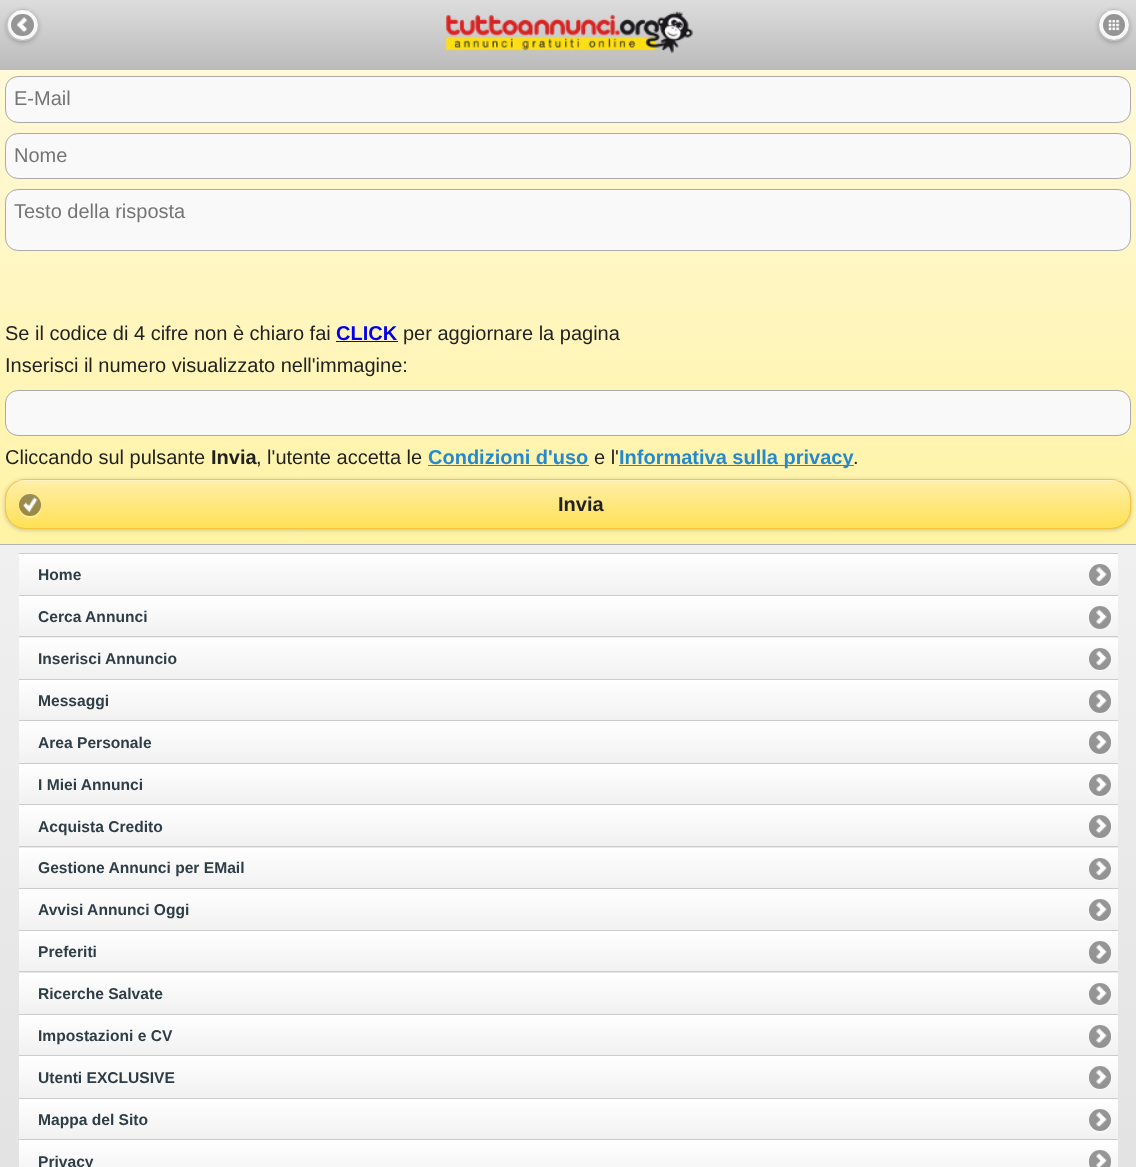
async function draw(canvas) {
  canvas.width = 1136
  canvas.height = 1167
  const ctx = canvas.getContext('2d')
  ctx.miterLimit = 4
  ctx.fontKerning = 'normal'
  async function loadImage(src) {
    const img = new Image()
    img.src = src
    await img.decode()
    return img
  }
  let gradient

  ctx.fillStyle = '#fff'
  ctx.fillRect(0, 0, 1136, 1167)
  gradient = ctx.createLinearGradient(568, 0, 568, 69)
  gradient.addColorStop(0, '#ddd')
  gradient.addColorStop(1, '#bbb')
  ctx.fillStyle = gradient
  ctx.fillRect(0, 0, 1136, 69)
  ctx.fillStyle = '#bbb'
  ctx.fillRect(0, 69, 1136, 1)
  ctx.save()
  ctx.beginPath()
  ctx.moveTo(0, 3)
  ctx.lineTo(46, 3)
  ctx.lineTo(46, 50)
  ctx.lineTo(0, 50)
  ctx.closePath()
  ctx.moveTo(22, 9)
  ctx.lineTo(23, 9)
  ctx.bezierCurveTo(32, 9, 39, 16, 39, 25)
  ctx.bezierCurveTo(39, 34, 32, 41, 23, 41)
  ctx.lineTo(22, 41)
  ctx.bezierCurveTo(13, 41, 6, 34, 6, 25)
  ctx.bezierCurveTo(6, 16, 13, 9, 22, 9)
  ctx.closePath()
  ctx.clip('evenodd')
  ctx.fillStyle = '#00000033'
  ctx.filter = 'blur(2px)'
  ctx.beginPath()
  ctx.roundRect(6, 10, 33, 33, 16.5)
  ctx.fill()
  ctx.filter = 'none'
  ctx.restore()
  gradient = ctx.createLinearGradient(23, 10, 23, 40)
  gradient.addColorStop(0, '#fafafa')
  gradient.addColorStop(1, '#f6f6f6')
  ctx.fillStyle = gradient
  ctx.beginPath()
  ctx.arc(23, 25, 15, 0, 2 * Math.PI)
  ctx.fill()
  ctx.beginPath()
  ctx.roundRect(6.5, 9.5, 32, 31, 15.5)
  ctx.strokeStyle = '#bbb'
  ctx.stroke()
  ctx.fillStyle = '#ffffff4d'
  ctx.fillRect(15, 10, 15, 1)
  ctx.fillStyle = '#fafafa'
  ctx.beginPath()
  ctx.moveTo(11.5, 24)
  ctx.bezierCurveTo(10.5, 27, 11, 30.5, 13, 33)
  ctx.bezierCurveTo(20, 43.5, 36.5, 36, 33.5, 24)
  ctx.bezierCurveTo(35, 35.5, 19.5, 41, 13, 31.5)
  ctx.bezierCurveTo(11.5, 29, 11, 26.5, 11.5, 24)
  ctx.closePath()
  ctx.fill()
  ctx.fillStyle = '#959595'
  ctx.beginPath()
  ctx.roundRect(11, 14, 23, 22, 11)
  ctx.fill()
  ctx.drawImage(await loadImage('image0.png'), 16, 17, 12, 16)
  ctx.drawImage(await loadImage('image1.png'), 445, 11, 249, 43)
  ctx.save()
  ctx.beginPath()
  ctx.moveTo(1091, 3)
  ctx.lineTo(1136, 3)
  ctx.lineTo(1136, 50)
  ctx.lineTo(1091, 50)
  ctx.closePath()
  ctx.moveTo(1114, 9)
  ctx.bezierCurveTo(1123, 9, 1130, 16, 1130, 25)
  ctx.bezierCurveTo(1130, 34, 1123, 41, 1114, 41)
  ctx.bezierCurveTo(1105, 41, 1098, 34, 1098, 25)
  ctx.bezierCurveTo(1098, 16, 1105, 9, 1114, 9)
  ctx.closePath()
  ctx.clip('evenodd')
  ctx.fillStyle = '#00000033'
  ctx.filter = 'blur(2px)'
  ctx.beginPath()
  ctx.roundRect(1098, 10, 32, 33, 16)
  ctx.fill()
  ctx.filter = 'none'
  ctx.restore()
  gradient = ctx.createLinearGradient(1114, 10, 1114, 40)
  gradient.addColorStop(0, '#fafafa')
  gradient.addColorStop(1, '#f6f6f6')
  ctx.fillStyle = gradient
  ctx.beginPath()
  ctx.arc(1114, 25, 15, 0, 2 * Math.PI)
  ctx.fill()
  ctx.beginPath()
  ctx.arc(1114, 25, 15.5, 0, 2 * Math.PI)
  ctx.stroke()
  ctx.fillStyle = '#ffffff4d'
  ctx.fillRect(1106, 10, 15, 1)
  ctx.fillStyle = '#fafafa'
  ctx.beginPath()
  ctx.moveTo(1125, 25.5)
  ctx.bezierCurveTo(1124.5, 38, 1107, 40, 1103, 28.5)
  ctx.bezierCurveTo(1105.5, 42.5, 1125.5, 40.5, 1125, 25.5)
  ctx.closePath()
  ctx.fill()
  ctx.fillStyle = '#959595'
  ctx.beginPath()
  ctx.arc(1114, 25, 11, 0, 2 * Math.PI)
  ctx.fill()
  ctx.drawImage(await loadImage('image2.png'), 1108, 19, 12, 12)
  gradient = ctx.createLinearGradient(568, 16, 568, 544)
  gradient.addColorStop(0, '#fffadf')
  gradient.addColorStop(1, '#fff3a5')
  ctx.fillStyle = gradient
  ctx.fillRect(0, 70, 1136, 474)
  ctx.fillStyle = '#f9f9f9'
  ctx.beginPath()
  ctx.roundRect(6, 78, 1124, 43, 11)
  ctx.fill()
  ctx.beginPath()
  ctx.roundRect(5.5, 76.5, 1125, 46, 12.5)
  ctx.strokeStyle = '#aaa'
  ctx.stroke()
  ctx.font = '20px Liberation Sans'
  ctx.fillStyle = '#757575'
  ctx.fillText('E-Mail', 14, 105)
  ctx.fillStyle = '#f9f9f9'
  ctx.beginPath()
  ctx.roundRect(6, 134, 1124, 44, 11)
  ctx.fill()
  ctx.beginPath()
  ctx.roundRect(5.5, 133.5, 1125, 45, 12.5)
  ctx.stroke()
  ctx.fillStyle = '#757575'
  ctx.fillText('Nome', 14, 162)
  ctx.fillStyle = '#f9f9f9'
  ctx.beginPath()
  ctx.roundRect(6, 190, 1124, 60, 11)
  ctx.fill()
  ctx.beginPath()
  ctx.roundRect(5.5, 189.5, 1125, 61, 12.5)
  ctx.stroke()
  ctx.fillStyle = '#757575'
  ctx.fillText('Testo della risposta', 14, 218)
  ctx.fillStyle = '#222'
  ctx.fillText('Se il codice di 4 cifre non è chiaro fai', 5, 340)
  ctx.font = 'bold 20px Liberation Sans'
  ctx.fillStyle = '#00e'
  ctx.fillText('CLICK', 336, 340)
  ctx.fillRect(336, 341, 62, 1)
  ctx.font = '20px Liberation Sans'
  ctx.fillStyle = '#222'
  ctx.fillText('per aggiornare la pagina', 403, 340)
  ctx.fillText('Inserisci il numero visualizzato nell\'immagine:', 5, 372)
  ctx.fillStyle = '#f9f9f9'
  ctx.beginPath()
  ctx.roundRect(6, 391, 1124, 44, 11)
  ctx.fill()
  ctx.beginPath()
  ctx.roundRect(5.5, 390.5, 1125, 45, 12.5)
  ctx.stroke()
  ctx.fillStyle = '#222'
  ctx.fillText('Cliccando sul pulsante', 5, 464)
  ctx.font = 'bold 20px Liberation Sans'
  ctx.fillText('Invia', 211, 464)
  ctx.font = '20px Liberation Sans'
  ctx.fillText(', l\'utente accetta le', 256, 464)
  ctx.font = 'bold 20px Liberation Sans'
  ctx.fillStyle = '#2489ce'
  ctx.fillText('Condizioni d\'uso', 428, 464)
  ctx.fillRect(428, 465, 161, 1)
  ctx.font = '20px Liberation Sans'
  ctx.fillStyle = '#222'
  ctx.fillText('e l\'', 594, 464)
  ctx.fillStyle = '#2489ce'
  ctx.fillRect(619, 465, 235, 1)
  ctx.font = 'bold 20px Liberation Sans'
  ctx.fillText('Informativa sulla privacy', 619, 464)
  ctx.font = '20px Liberation Sans'
  ctx.fillStyle = '#222'
  ctx.fillText('.', 853, 464)
  ctx.fillStyle = '#00000033'
  ctx.filter = 'blur(2px)'
  ctx.beginPath()
  ctx.roundRect(5, 480, 1126, 50, 20)
  ctx.fill()
  ctx.filter = 'none'
  gradient = ctx.createLinearGradient(568, 480, 568, 528)
  gradient.addColorStop(0, '#ffefaa')
  gradient.addColorStop(1, '#ffe155')
  ctx.fillStyle = gradient
  ctx.beginPath()
  ctx.roundRect(6, 480, 1124, 48, 19)
  ctx.fill()
  ctx.beginPath()
  ctx.roundRect(5.5, 479.5, 1125, 49, 19.5)
  ctx.strokeStyle = '#f4c63f'
  ctx.stroke()
  ctx.fillStyle = '#ffffff4d'
  ctx.fillRect(16, 480, 1104, 1)
  ctx.fillStyle = '#ffffff66'
  ctx.beginPath()
  ctx.moveTo(41, 507.5)
  ctx.bezierCurveTo(38.5, 519, 21.5, 519, 19, 507.5)
  ctx.bezierCurveTo(19.5, 521.5, 40.5, 521.5, 41, 507.5)
  ctx.closePath()
  ctx.fill()
  ctx.fillStyle = '#00000066'
  ctx.beginPath()
  ctx.arc(30, 505, 11, 0, 2 * Math.PI)
  ctx.fill()
  ctx.drawImage(await loadImage('image3.png'), 23, 497, 15, 16)
  ctx.font = 'bold 20px Liberation Sans'
  ctx.fillStyle = '#222'
  ctx.fillText('Invia', 558, 511)
  gradient = ctx.createLinearGradient(568, 545, 568, 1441)
  gradient.addColorStop(0, '#f0f0f0')
  gradient.addColorStop(1, '#ddd')
  ctx.fillStyle = gradient
  ctx.fillRect(0, 545, 1136, 622)
  ctx.fillStyle = '#b3b3b3'
  ctx.fillRect(0, 544, 1136, 1)
  gradient = ctx.createLinearGradient(568, 554, 568, 595)
  gradient.addColorStop(0, '#fff')
  gradient.addColorStop(1, '#f1f1f1')
  ctx.fillStyle = gradient
  ctx.fillRect(19, 554, 1099, 40)
  ctx.fillStyle = '#ccc'
  ctx.fillRect(19, 553, 1099, 1)
  ctx.font = 'bold 15.6px Liberation Sans'
  ctx.fillStyle = '#2f3e46'
  ctx.fillText('Home', 38, 580)
  ctx.fillStyle = '#f9f9f9'
  ctx.beginPath()
  ctx.moveTo(1111, 577.5)
  ctx.bezierCurveTo(1108.5, 589, 1091.5, 589, 1089, 577.5)
  ctx.bezierCurveTo(1089.5, 591.5, 1110.5, 591.5, 1111, 577.5)
  ctx.closePath()
  ctx.fill()
  ctx.fillStyle = '#00000066'
  ctx.beginPath()
  ctx.arc(1100, 575, 11, 0, 2 * Math.PI)
  ctx.fill()
  ctx.drawImage(await loadImage('image4.png'), 1096, 567, 11, 15)
  gradient = ctx.createLinearGradient(568, 596, 568, 636)
  gradient.addColorStop(0, '#fff')
  gradient.addColorStop(1, '#f1f1f1')
  ctx.fillStyle = gradient
  ctx.fillRect(19, 596, 1099, 40)
  ctx.fillStyle = '#ccc'
  ctx.fillRect(19, 595, 1099, 1)
  ctx.fillStyle = '#2f3e46'
  ctx.fillText('Cerca Annunci', 38, 622)
  ctx.fillStyle = '#f8f8f8'
  ctx.beginPath()
  ctx.moveTo(1111, 620)
  ctx.bezierCurveTo(1108, 631.5, 1092, 631.5, 1089, 620)
  ctx.bezierCurveTo(1090.5, 633, 1109.5, 633, 1111, 620)
  ctx.closePath()
  ctx.fill()
  ctx.fillStyle = '#00000066'
  ctx.beginPath()
  ctx.roundRect(1089, 606, 22, 23, 11)
  ctx.fill()
  ctx.drawImage(await loadImage('image5.png'), 1096, 609, 11, 16)
  gradient = ctx.createLinearGradient(568, 637, 568, 679)
  gradient.addColorStop(0, '#fff')
  gradient.addColorStop(1, '#f1f1f1')
  ctx.fillStyle = gradient
  ctx.fillRect(19, 638, 1099, 41)
  ctx.fillStyle = '#ccc'
  ctx.fillRect(19, 636, 1099, 1)
  ctx.fillStyle = '#2f3e46'
  ctx.fillText('Inserisci Annuncio', 38, 664)
  ctx.fillStyle = '#f9f9f9'
  ctx.beginPath()
  ctx.moveTo(1111, 661.5)
  ctx.bezierCurveTo(1108, 672.5, 1092, 672.5, 1089, 661.5)
  ctx.bezierCurveTo(1091, 674, 1109, 674, 1111, 661.5)
  ctx.closePath()
  ctx.fill()
  ctx.fillStyle = '#00000066'
  ctx.beginPath()
  ctx.arc(1100, 659, 11, 0, 2 * Math.PI)
  ctx.fill()
  ctx.drawImage(await loadImage('image6.png'), 1096, 650, 11, 16)
  gradient = ctx.createLinearGradient(568, 680, 568, 720)
  gradient.addColorStop(0, '#fff')
  gradient.addColorStop(1, '#f1f1f1')
  ctx.fillStyle = gradient
  ctx.fillRect(19, 680, 1099, 40)
  ctx.fillStyle = '#ccc'
  ctx.fillRect(19, 679, 1099, 1)
  ctx.fillStyle = '#2f3e46'
  ctx.fillText('Messaggi', 38, 706)
  ctx.fillStyle = '#f8f8f8'
  ctx.beginPath()
  ctx.moveTo(1111, 703.5)
  ctx.bezierCurveTo(1108.5, 715.5, 1091.5, 715.5, 1089, 703.5)
  ctx.bezierCurveTo(1090, 717, 1110, 717, 1111, 703.5)
  ctx.closePath()
  ctx.fill()
  ctx.fillStyle = '#00000066'
  ctx.beginPath()
  ctx.roundRect(1089, 690, 22, 23, 11)
  ctx.fill()
  ctx.drawImage(await loadImage('image7.png'), 1096, 693, 11, 16)
  gradient = ctx.createLinearGradient(568, 721, 568, 763)
  gradient.addColorStop(0, '#fff')
  gradient.addColorStop(1, '#f1f1f1')
  ctx.fillStyle = gradient
  ctx.fillRect(19, 721, 1099, 42)
  ctx.fillStyle = '#ccc'
  ctx.fillRect(19, 720, 1099, 1)
  ctx.fillStyle = '#2f3e46'
  ctx.fillText('Area Personale', 38, 748)
  ctx.fillStyle = '#f9f9f9'
  ctx.beginPath()
  ctx.moveTo(1111, 745)
  ctx.bezierCurveTo(1108, 756.5, 1092, 756.5, 1089, 745)
  ctx.bezierCurveTo(1090.5, 758, 1109.5, 758, 1111, 745)
  ctx.closePath()
  ctx.fill()
  ctx.fillStyle = '#00000066'
  ctx.beginPath()
  ctx.roundRect(1089, 731, 22, 23, 11)
  ctx.fill()
  ctx.drawImage(await loadImage('image8.png'), 1096, 734, 11, 16)
  gradient = ctx.createLinearGradient(568, 764, 568, 804)
  gradient.addColorStop(0, '#fff')
  gradient.addColorStop(1, '#f1f1f1')
  ctx.fillStyle = gradient
  ctx.fillRect(19, 764, 1099, 40)
  ctx.fillStyle = '#ccc'
  ctx.fillRect(19, 763, 1099, 1)
  ctx.fillStyle = '#2f3e46'
  ctx.fillText('I Miei Annunci', 38, 790)
  ctx.fillStyle = '#f8f8f8'
  ctx.beginPath()
  ctx.moveTo(1111, 787.5)
  ctx.bezierCurveTo(1108.5, 799, 1091.5, 799, 1089, 787.5)
  ctx.bezierCurveTo(1089.5, 801.5, 1110.5, 801.5, 1111, 787.5)
  ctx.closePath()
  ctx.fill()
  ctx.fillStyle = '#00000066'
  ctx.beginPath()
  ctx.arc(1100, 785, 11, 0, 2 * Math.PI)
  ctx.fill()
  ctx.drawImage(await loadImage('image9.png'), 1096, 777, 11, 15)
  gradient = ctx.createLinearGradient(568, 805, 568, 846)
  gradient.addColorStop(0, '#fff')
  gradient.addColorStop(1, '#f1f1f1')
  ctx.fillStyle = gradient
  ctx.fillRect(19, 805, 1099, 41)
  ctx.fillStyle = '#ccc'
  ctx.fillRect(19, 804, 1099, 1)
  ctx.fillStyle = '#2f3e46'
  ctx.fillText('Acquista Credito', 38, 832)
  ctx.fillStyle = '#f9f9f9'
  ctx.beginPath()
  ctx.moveTo(1111, 828.5)
  ctx.bezierCurveTo(1108.5, 840.5, 1091.5, 840.5, 1089, 828.5)
  ctx.bezierCurveTo(1090, 842, 1110, 842, 1111, 828.5)
  ctx.closePath()
  ctx.fill()
  ctx.fillStyle = '#00000066'
  ctx.beginPath()
  ctx.roundRect(1089, 815, 22, 23, 11)
  ctx.fill()
  ctx.drawImage(await loadImage('image10.png'), 1096, 818, 11, 16)
  gradient = ctx.createLinearGradient(568, 848, 568, 888)
  gradient.addColorStop(0, '#fff')
  gradient.addColorStop(1, '#f1f1f1')
  ctx.fillStyle = gradient
  ctx.fillRect(19, 848, 1099, 40)
  ctx.fillStyle = '#ccc'
  ctx.fillRect(19, 846, 1099, 1)
  ctx.fillStyle = '#2f3e46'
  ctx.fillText('Gestione Annunci per EMail', 38, 873)
  ctx.fillStyle = '#f9f9f9'
  ctx.beginPath()
  ctx.moveTo(1111, 871.5)
  ctx.bezierCurveTo(1108, 882.5, 1092, 882.5, 1089, 871.5)
  ctx.bezierCurveTo(1091, 884, 1109, 884, 1111, 871.5)
  ctx.closePath()
  ctx.fill()
  ctx.fillStyle = '#00000066'
  ctx.beginPath()
  ctx.arc(1100, 869, 11, 0, 2 * Math.PI)
  ctx.fill()
  ctx.drawImage(await loadImage('image11.png'), 1096, 860, 11, 16)
  gradient = ctx.createLinearGradient(568, 889, 568, 930)
  gradient.addColorStop(0, '#fff')
  gradient.addColorStop(1, '#f1f1f1')
  ctx.fillStyle = gradient
  ctx.fillRect(19, 889, 1099, 41)
  ctx.fillStyle = '#ccc'
  ctx.fillRect(19, 888, 1099, 1)
  ctx.fillStyle = '#2f3e46'
  ctx.fillText('Avvisi Annunci Oggi', 38, 915)
  ctx.fillStyle = '#f9f9f9'
  ctx.beginPath()
  ctx.moveTo(1111, 912.5)
  ctx.bezierCurveTo(1108.5, 924, 1091.5, 924, 1089, 912.5)
  ctx.bezierCurveTo(1089.5, 926.5, 1110.5, 926.5, 1111, 912.5)
  ctx.closePath()
  ctx.fill()
  ctx.fillStyle = '#00000066'
  ctx.beginPath()
  ctx.arc(1100, 910, 11, 0, 2 * Math.PI)
  ctx.fill()
  ctx.drawImage(await loadImage('image4.png'), 1096, 902, 11, 15)
  gradient = ctx.createLinearGradient(568, 931, 568, 971)
  gradient.addColorStop(0, '#fff')
  gradient.addColorStop(1, '#f1f1f1')
  ctx.fillStyle = gradient
  ctx.fillRect(19, 931, 1099, 40)
  ctx.fillStyle = '#ccc'
  ctx.fillRect(19, 930, 1099, 1)
  ctx.fillStyle = '#2f3e46'
  ctx.fillText('Preferiti', 38, 957)
  ctx.fillStyle = '#f8f8f8'
  ctx.beginPath()
  ctx.moveTo(1111, 955)
  ctx.bezierCurveTo(1108, 966.5, 1092, 966.5, 1089, 955)
  ctx.bezierCurveTo(1090.5, 968, 1109.5, 968, 1111, 955)
  ctx.closePath()
  ctx.fill()
  ctx.fillStyle = '#00000066'
  ctx.beginPath()
  ctx.roundRect(1089, 941, 22, 23, 11)
  ctx.fill()
  ctx.drawImage(await loadImage('image5.png'), 1096, 944, 11, 16)
  gradient = ctx.createLinearGradient(568, 973, 568, 1014)
  gradient.addColorStop(0, '#fff')
  gradient.addColorStop(1, '#f1f1f1')
  ctx.fillStyle = gradient
  ctx.fillRect(19, 973, 1099, 41)
  ctx.fillStyle = '#ccc'
  ctx.fillRect(19, 971, 1099, 1)
  ctx.fillStyle = '#2f3e46'
  ctx.fillText('Ricerche Salvate', 38, 999)
  ctx.fillStyle = '#f9f9f9'
  ctx.beginPath()
  ctx.moveTo(1111, 996.5)
  ctx.bezierCurveTo(1108, 1007.5, 1092, 1007.5, 1089, 996.5)
  ctx.bezierCurveTo(1091, 1009, 1109, 1009, 1111, 996.5)
  ctx.closePath()
  ctx.fill()
  ctx.fillStyle = '#00000066'
  ctx.beginPath()
  ctx.arc(1100, 994, 11, 0, 2 * Math.PI)
  ctx.fill()
  ctx.drawImage(await loadImage('image6.png'), 1096, 985, 11, 16)
  gradient = ctx.createLinearGradient(568, 1015, 568, 1055)
  gradient.addColorStop(0, '#fff')
  gradient.addColorStop(1, '#f1f1f1')
  ctx.fillStyle = gradient
  ctx.fillRect(19, 1015, 1099, 40)
  ctx.fillStyle = '#ccc'
  ctx.fillRect(19, 1014, 1099, 1)
  ctx.fillStyle = '#2f3e46'
  ctx.fillText('Impostazioni e CV', 38, 1041)
  ctx.fillStyle = '#f8f8f8'
  ctx.beginPath()
  ctx.moveTo(1089, 1038.5)
  ctx.bezierCurveTo(1090, 1052, 1110, 1052, 1111, 1038.5)
  ctx.bezierCurveTo(1108.5, 1050.5, 1091.5, 1050.5, 1089, 1038.5)
  ctx.closePath()
  ctx.fill()
  ctx.fillStyle = '#00000066'
  ctx.beginPath()
  ctx.roundRect(1089, 1025, 22, 23, 11)
  ctx.fill()
  ctx.drawImage(await loadImage('image7.png'), 1096, 1028, 11, 16)
  gradient = ctx.createLinearGradient(568, 1056, 568, 1098)
  gradient.addColorStop(0, '#fff')
  gradient.addColorStop(1, '#f1f1f1')
  ctx.fillStyle = gradient
  ctx.fillRect(19, 1056, 1099, 42)
  ctx.fillStyle = '#ccc'
  ctx.fillRect(19, 1055, 1099, 1)
  ctx.fillStyle = '#2f3e46'
  ctx.fillText('Utenti EXCLUSIVE', 38, 1083)
  ctx.fillStyle = '#f9f9f9'
  ctx.beginPath()
  ctx.moveTo(1089, 1080)
  ctx.bezierCurveTo(1090.5, 1093, 1109.5, 1093, 1111, 1080)
  ctx.bezierCurveTo(1108, 1091.5, 1092, 1091.5, 1089, 1080)
  ctx.closePath()
  ctx.fill()
  ctx.fillStyle = '#00000066'
  ctx.beginPath()
  ctx.roundRect(1089, 1066, 22, 23, 11)
  ctx.fill()
  ctx.drawImage(await loadImage('image12.png'), 1096, 1069, 11, 16)
  gradient = ctx.createLinearGradient(568, 1099, 568, 1139)
  gradient.addColorStop(0, '#fff')
  gradient.addColorStop(1, '#f1f1f1')
  ctx.fillStyle = gradient
  ctx.fillRect(19, 1099, 1099, 40)
  ctx.fillStyle = '#ccc'
  ctx.fillRect(19, 1098, 1099, 1)
  ctx.fillStyle = '#2f3e46'
  ctx.fillText('Mappa del Sito', 38, 1125)
  ctx.fillStyle = '#f8f8f8'
  ctx.beginPath()
  ctx.moveTo(1089, 1122.5)
  ctx.bezierCurveTo(1089.5, 1136.5, 1110.5, 1136.5, 1111, 1122.5)
  ctx.bezierCurveTo(1108.5, 1134, 1091.5, 1134, 1089, 1122.5)
  ctx.closePath()
  ctx.fill()
  ctx.fillStyle = '#00000066'
  ctx.beginPath()
  ctx.arc(1100, 1120, 11, 0, 2 * Math.PI)
  ctx.fill()
  ctx.drawImage(await loadImage('image9.png'), 1096, 1112, 11, 15)
  gradient = ctx.createLinearGradient(568, 1140, 568, 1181)
  gradient.addColorStop(0, '#fff')
  gradient.addColorStop(1, '#f1f1f1')
  ctx.fillStyle = gradient
  ctx.fillRect(19, 1140, 1099, 27)
  ctx.fillStyle = '#ccc'
  ctx.fillRect(19, 1139, 1099, 1)
  ctx.fillStyle = '#2f3e46'
  ctx.fillText('Privacy', 38, 1167)
  ctx.fillStyle = '#00000066'
  ctx.beginPath()
  ctx.roundRect(1089, 1150, 22, 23, 11)
  ctx.fill()
  ctx.drawImage(await loadImage('image13.png'), 1096, 1153, 11, 14)
}

draw(document.querySelector('canvas'))
